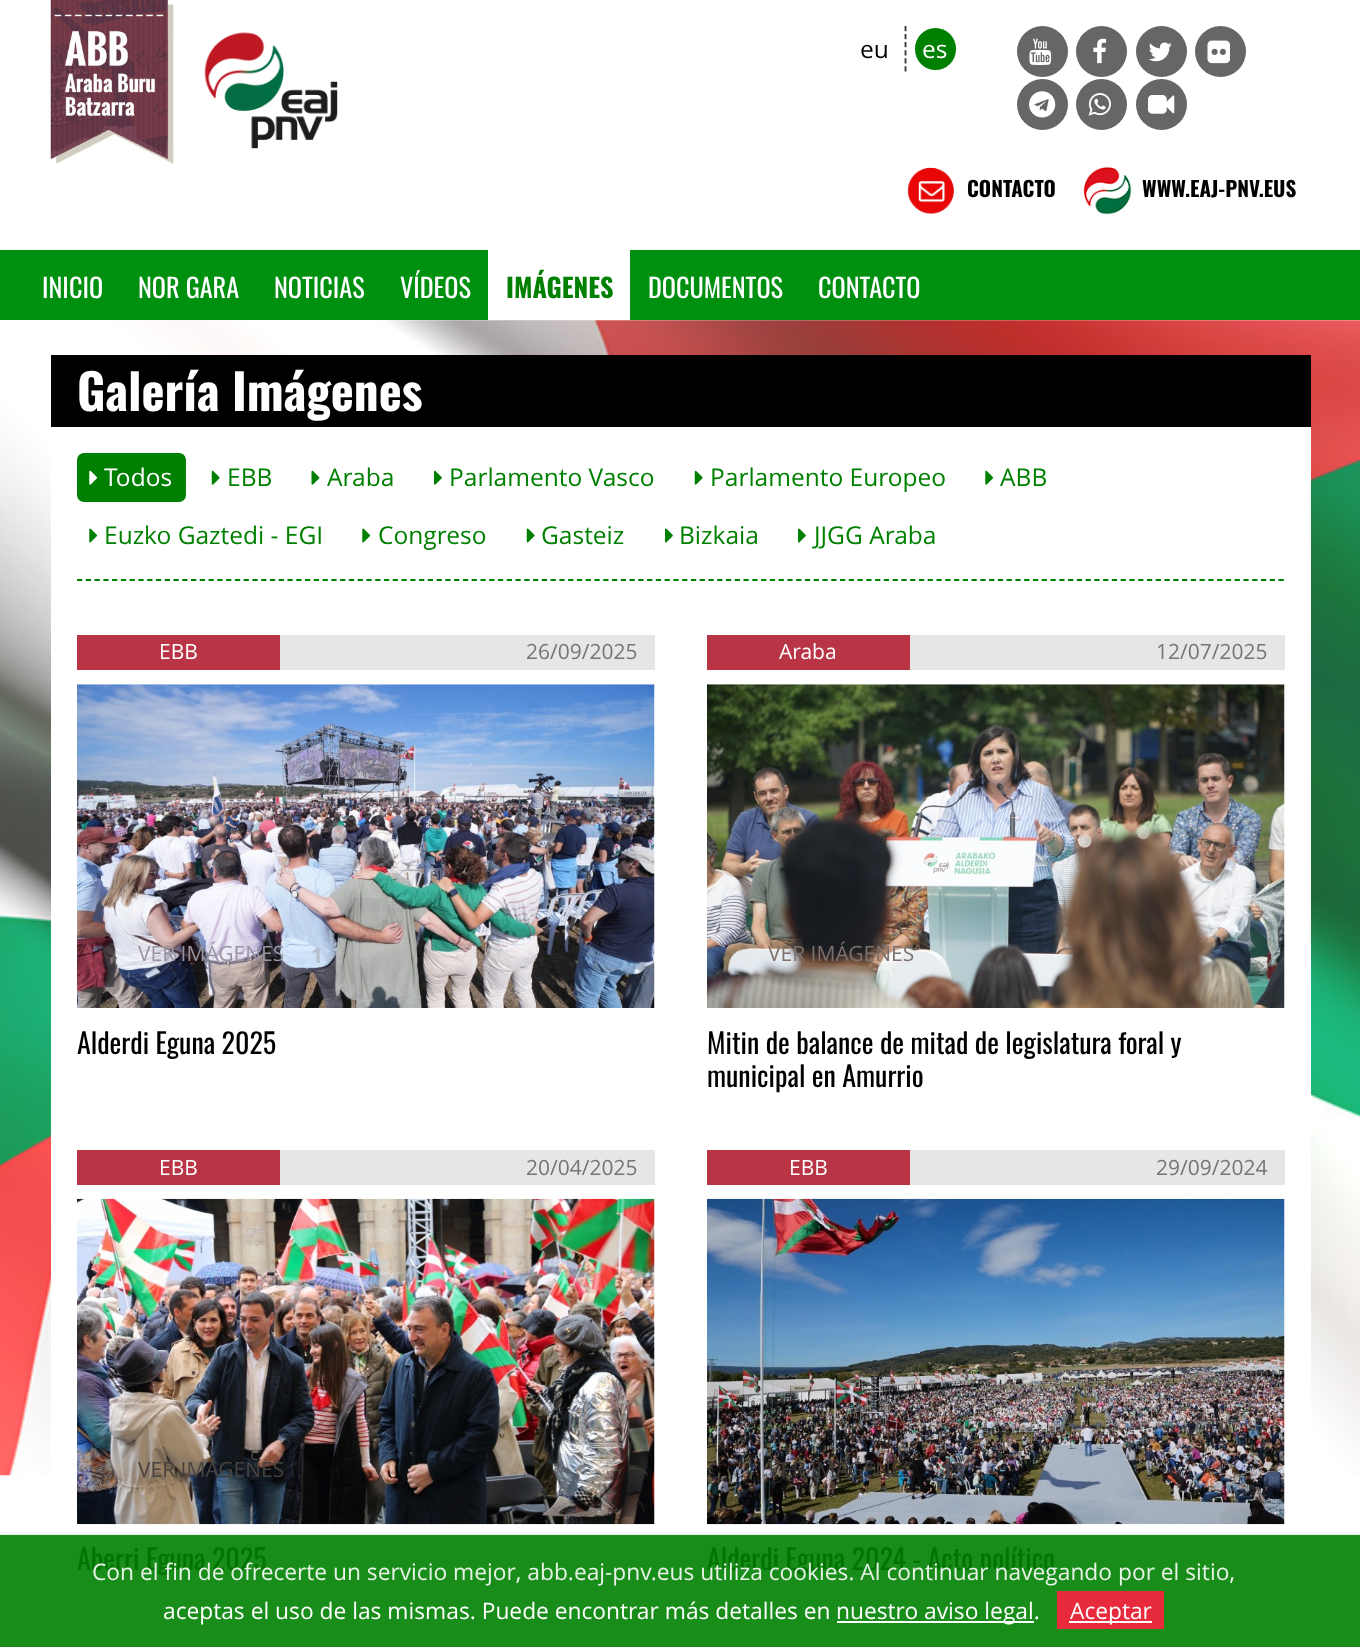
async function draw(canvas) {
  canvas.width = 1360
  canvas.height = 1647
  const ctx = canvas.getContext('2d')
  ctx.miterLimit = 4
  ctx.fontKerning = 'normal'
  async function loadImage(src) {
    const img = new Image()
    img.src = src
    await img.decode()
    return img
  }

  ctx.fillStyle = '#fff'
  ctx.fillRect(0, 0, 1360, 1647)
  ctx.fillStyle = '#198d19'
  ctx.fillRect(0, 1535, 1360, 112)
  ctx.drawImage(await loadImage('image0.png'), 50, 0, 124, 164)
  ctx.drawImage(await loadImage('image1.png'), 204, 32, 134, 117)
  ctx.beginPath()
  ctx.moveTo(905.5, 26)
  ctx.lineTo(905.5, 72)
  ctx.strokeStyle = '#333'
  ctx.lineWidth = 1.8
  ctx.setLineDash([5.25, 2.8])
  ctx.stroke()
  ctx.font = '24.5px Open Sans'
  ctx.fillStyle = '#000'
  ctx.fillText('eu', 860, 58)
  ctx.fillStyle = '#008000'
  ctx.beginPath()
  ctx.roundRect(915, 28, 41, 42, 20.5)
  ctx.fill()
  ctx.fillStyle = '#fff'
  ctx.fillText('es', 922, 58)
  ctx.fillStyle = '#666'
  ctx.beginPath()
  ctx.arc(1042.5, 51.5, 25.5, 0, 2 * Math.PI)
  ctx.fill()
  ctx.drawImage(await loadImage('image2.png'), 1029, 38, 23, 27)
  ctx.beginPath()
  ctx.arc(1101.5, 51.5, 25.5, 0, 2 * Math.PI)
  ctx.fill()
  ctx.drawImage(await loadImage('image3.png'), 1093, 38, 14, 26)
  ctx.beginPath()
  ctx.arc(1161.5, 51.5, 25.5, 0, 2 * Math.PI)
  ctx.fill()
  ctx.drawImage(await loadImage('image4.png'), 1148, 42, 24, 20)
  ctx.beginPath()
  ctx.arc(1220.5, 51.5, 25.5, 0, 2 * Math.PI)
  ctx.fill()
  ctx.drawImage(await loadImage('image5.png'), 1207, 40, 23, 24)
  ctx.beginPath()
  ctx.arc(1042.5, 104.5, 25.5, 0, 2 * Math.PI)
  ctx.fill()
  ctx.drawImage(await loadImage('image6.png'), 1029, 91, 27, 27)
  ctx.beginPath()
  ctx.arc(1101.5, 104.5, 25.5, 0, 2 * Math.PI)
  ctx.fill()
  ctx.drawImage(await loadImage('image7.png'), 1088, 93, 23, 23)
  ctx.beginPath()
  ctx.arc(1161.5, 104.5, 25.5, 0, 2 * Math.PI)
  ctx.fill()
  ctx.drawImage(await loadImage('image8.png'), 1148, 95, 27, 19)
  ctx.drawImage(await loadImage('image9.png'), 907, 167, 47, 47)
  ctx.font = 'bold 21px Oswald'
  ctx.fillStyle = '#000'
  ctx.fillText('CONTACTO', 967, 197)
  ctx.drawImage(await loadImage('image10.png'), 1083, 167, 49, 48)
  ctx.fillText('WWW.EAJ-PNV.EUS', 1142, 197)
  ctx.fillStyle = '#009010'
  ctx.fillRect(0, 250, 1360, 70)
  ctx.font = '26.25px Oswald'
  ctx.fillStyle = '#fff'
  ctx.fillText('INICIO', 42, 298)
  ctx.fillText('NOR GARA', 138, 298)
  ctx.fillText('NOTICIAS', 274, 298)
  ctx.fillText('VÍDEOS', 400, 298)
  ctx.fillRect(488, 250, 142, 70)
  ctx.font = 'bold 26.25px Oswald'
  ctx.fillStyle = '#008000'
  ctx.fillText('IMÁGENES', 506, 298)
  ctx.font = '26.25px Oswald'
  ctx.fillStyle = '#fff'
  ctx.fillText('DOCUMENTOS', 648, 298)
  ctx.fillText('CONTACTO', 818, 298)
  ctx.drawImage(await loadImage('image11.png'), 0, 320, 1360, 1156)
  ctx.fillStyle = '#000'
  ctx.fillRect(51, 355, 1260, 72)
  ctx.font = 'bold 49px Oswald'
  ctx.fillStyle = '#fff'
  ctx.fillText('Galería Imágenes', 77, 411)
  ctx.fillRect(51, 427, 1260, 1049)
  ctx.fillStyle = '#008000'
  ctx.beginPath()
  ctx.roundRect(78, 454, 107, 47, 6)
  ctx.fill()
  ctx.strokeStyle = '#008000'
  ctx.lineWidth = 2
  ctx.setLineDash([])
  ctx.stroke()
  ctx.drawImage(await loadImage('image12.png'), 89, 470, 9, 15)
  ctx.font = '24.5px Open Sans'
  ctx.fillStyle = '#fff'
  ctx.fillText('Todos', 104, 486)
  ctx.drawImage(await loadImage('image13.png'), 211, 470, 9, 15)
  ctx.fillStyle = '#008000'
  ctx.fillText('EBB', 227, 486)
  ctx.drawImage(await loadImage('image14.png'), 311, 470, 9, 15)
  ctx.fillText('Araba', 327, 486)
  ctx.drawImage(await loadImage('image15.png'), 434, 470, 8, 15)
  ctx.fillText('Parlamento Vasco', 449, 486)
  ctx.drawImage(await loadImage('image13.png'), 694, 470, 9, 15)
  ctx.fillText('Parlamento Europeo', 710, 486)
  ctx.drawImage(await loadImage('image16.png'), 985, 470, 9, 15)
  ctx.fillText('ABB', 1000, 486)
  ctx.drawImage(await loadImage('image17.png'), 89, 528, 9, 15)
  ctx.fillText('Euzko Gaztedi - EGI', 104, 544)
  ctx.drawImage(await loadImage('image17.png'), 362, 528, 9, 15)
  ctx.fillText('Congreso', 378, 544)
  ctx.drawImage(await loadImage('image18.png'), 526, 528, 9, 15)
  ctx.fillText('Gasteiz', 541, 544)
  ctx.drawImage(await loadImage('image19.png'), 665, 528, 8, 15)
  ctx.fillText('Bizkaia', 679, 544)
  ctx.drawImage(await loadImage('image19.png'), 798, 528, 8, 15)
  ctx.fillText('JJGG Araba', 814, 544)
  ctx.beginPath()
  ctx.moveTo(77, 580)
  ctx.lineTo(1284.5, 580)
  ctx.lineWidth = 1.8
  ctx.setLineDash([5.25, 3.52])
  ctx.stroke()
  ctx.fillStyle = '#e6e6e6'
  ctx.fillRect(280, 635, 375, 35)
  ctx.fillStyle = '#b93444'
  ctx.fillRect(77, 635, 203, 35)
  ctx.font = '21px Open Sans'
  ctx.fillStyle = '#fff'
  ctx.fillText('EBB', 159, 659)
  ctx.fillStyle = '#757575'
  ctx.fillText('26/09/2025', 526, 659)
  ctx.drawImage(await loadImage('image20.png'), 77, 684, 578, 324)
  ctx.fillStyle = '#9994a1'
  ctx.fillText('VER IMÁGENES', 138, 961)
  ctx.font = 'bold 21px Open Sans'
  ctx.fillStyle = '#b4bfcc'
  ctx.fillText('1', 311, 963)
  ctx.font = '28px Oswald'
  ctx.fillStyle = '#000'
  ctx.fillText('Alderdi Eguna 2025', 77, 1054)
  ctx.fillStyle = '#e6e6e6'
  ctx.fillRect(910, 635, 375, 35)
  ctx.fillStyle = '#b93444'
  ctx.fillRect(707, 635, 203, 35)
  ctx.font = '21px Open Sans'
  ctx.fillStyle = '#fff'
  ctx.fillText('Araba', 779, 659)
  ctx.fillStyle = '#757575'
  ctx.fillText('12/07/2025', 1156, 659)
  ctx.drawImage(await loadImage('image21.png'), 707, 684, 578, 324)
  ctx.fillStyle = '#7c716c'
  ctx.fillText('VER IMÁGENES', 768, 961)
  ctx.font = '28px Oswald'
  ctx.fillStyle = '#000'
  ctx.fillText('Mitin de balance de mitad de legislatura foral y', 707, 1054)
  ctx.fillText('municipal en Amurrio', 707, 1087)
  ctx.fillStyle = '#e6e6e6'
  ctx.fillRect(280, 1150, 375, 35)
  ctx.fillStyle = '#b93444'
  ctx.fillRect(77, 1150, 203, 35)
  ctx.font = '21px Open Sans'
  ctx.fillStyle = '#fff'
  ctx.fillText('EBB', 159, 1175)
  ctx.fillStyle = '#757575'
  ctx.fillText('20/04/2025', 526, 1175)
  ctx.drawImage(await loadImage('image22.png'), 77, 1198, 578, 327)
  ctx.fillStyle = '#484340'
  ctx.fillText('VER IMÁGENES', 138, 1477)
  ctx.font = '28px Oswald'
  ctx.fillStyle = '#007300'
  ctx.fillText('Aberri Eguna 2025', 77, 1570)
  ctx.fillStyle = '#e6e6e6'
  ctx.fillRect(910, 1150, 375, 35)
  ctx.fillStyle = '#b93444'
  ctx.fillRect(707, 1150, 203, 35)
  ctx.font = '21px Open Sans'
  ctx.fillStyle = '#fff'
  ctx.fillText('EBB', 789, 1175)
  ctx.fillStyle = '#757575'
  ctx.fillText('29/09/2024', 1156, 1175)
  ctx.drawImage(await loadImage('image23.png'), 707, 1198, 578, 327)
  ctx.fillStyle = '#3c3836'
  ctx.fillText('VER IMÁGENES', 768, 1477)
  ctx.font = 'bold 21px Open Sans'
  ctx.fillStyle = '#44444a'
  ctx.fillText('13', 941, 1478)
  ctx.font = '28px Oswald'
  ctx.fillStyle = '#007300'
  ctx.fillText('Alderdi Eguna 2024 - Acto político', 707, 1570)
  ctx.save()
  ctx.beginPath()
  ctx.rect(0, 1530, 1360, 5)
  ctx.clip()
  ctx.fillStyle = '#d1d1d1'
  ctx.filter = 'blur(2.5px)'
  ctx.beginPath()
  ctx.rect(0, 1535, 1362, 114)
  ctx.fill()
  ctx.filter = 'none'
  ctx.restore()
  ctx.font = '22.75px Open Sans'
  ctx.fillStyle = '#e8f3e8'
  ctx.fillText('Con el fin de ofrecerte un servicio mejor, abb.eaj-pnv.eus utiliza cookies. Al continuar navegando por el sitio,', 92, 1580)
  ctx.fillStyle = '#fff'
  ctx.fillText('aceptas el uso de las mismas. Puede encontrar más detalles en', 163, 1619)
  ctx.fillRect(837, 1621, 197, 2)
  ctx.fillText('nuestro aviso legal.', 836, 1619)
  ctx.fillStyle = '#e72b3d'
  ctx.fillRect(1057, 1591, 107, 38)
  ctx.fillStyle = '#fff'
  ctx.fillRect(1069, 1621, 83, 2)
  ctx.fillText('Aceptar', 1070, 1619)
}

draw(document.querySelector('canvas'))
